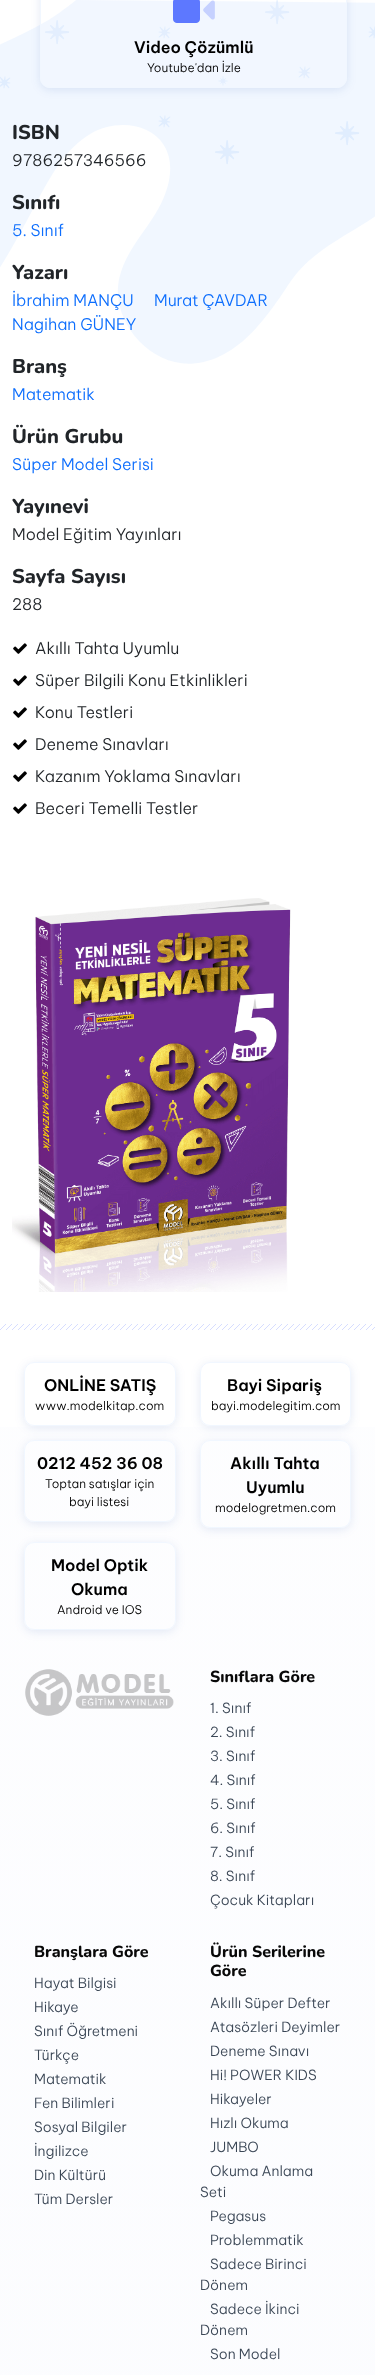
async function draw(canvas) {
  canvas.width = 375
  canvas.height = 2375
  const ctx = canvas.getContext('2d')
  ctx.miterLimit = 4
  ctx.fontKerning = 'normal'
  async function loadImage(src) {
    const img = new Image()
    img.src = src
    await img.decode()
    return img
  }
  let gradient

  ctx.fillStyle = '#fff'
  ctx.fillRect(0, 0, 375, 2375)
  ctx.drawImage(await loadImage('image0.png'), 0, 0, 375, 364)
  ctx.save()
  ctx.beginPath()
  ctx.moveTo(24, 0)
  ctx.lineTo(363, 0)
  ctx.lineTo(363, 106)
  ctx.lineTo(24, 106)
  ctx.closePath()
  ctx.moveTo(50, -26)
  ctx.lineTo(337, -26)
  ctx.bezierCurveTo(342.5, -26, 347, -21.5, 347, -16)
  ctx.lineTo(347, 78)
  ctx.bezierCurveTo(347, 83.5, 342.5, 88, 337, 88)
  ctx.lineTo(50, 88)
  ctx.bezierCurveTo(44.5, 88, 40, 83.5, 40, 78)
  ctx.lineTo(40, -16)
  ctx.bezierCurveTo(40, -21.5, 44.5, -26, 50, -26)
  ctx.closePath()
  ctx.clip('evenodd')
  ctx.fillStyle = '#00319b1a'
  ctx.filter = 'blur(5px)'
  ctx.beginPath()
  ctx.roundRect(40, -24, 307, 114, 10)
  ctx.fill()
  ctx.filter = 'none'
  ctx.restore()
  ctx.fillStyle = '#ffffff1a'
  ctx.beginPath()
  ctx.roundRect(40.5, -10.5, 306, 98, 9.5)
  ctx.fill()
  ctx.strokeStyle = '#f1f7ff'
  ctx.stroke()
  ctx.drawImage(await loadImage('image1.png'), 173, 0, 42, 23)
  ctx.font = '600 16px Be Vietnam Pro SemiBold'
  ctx.fillStyle = '#000'
  ctx.fillText('Video Çözümlü', 134, 53)
  ctx.font = '300 12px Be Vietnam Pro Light'
  ctx.fillText('Youtube\'dan İzle', 147, 72)
  ctx.font = '800 20px Nunito'
  ctx.fillStyle = '#212529'
  ctx.fillText('ISBN', 12, 139)
  ctx.font = '300 16px Be Vietnam Pro Light'
  ctx.fillText('9786257346566', 12, 166)
  ctx.font = '800 20px Nunito'
  ctx.fillText('Sınıfı', 12, 209)
  ctx.font = '300 16px Be Vietnam Pro Light'
  ctx.fillStyle = '#0d6efd'
  ctx.fillText('5. Sınıf', 12, 236)
  ctx.font = '800 20px Nunito'
  ctx.fillStyle = '#212529'
  ctx.fillText('Yazarı', 12, 279)
  ctx.font = '300 16px Be Vietnam Pro Light'
  ctx.fillStyle = '#0d6efd'
  ctx.fillText('İbrahim MANÇU', 12, 306)
  ctx.fillText('Murat ÇAVDAR', 154, 306)
  ctx.fillText('Nagihan GÜNEY', 12, 330)
  ctx.font = '800 20px Nunito'
  ctx.fillStyle = '#212529'
  ctx.fillText('Branş', 12, 373)
  ctx.font = '300 16px Be Vietnam Pro Light'
  ctx.fillStyle = '#0d6efd'
  ctx.fillText('Matematik', 12, 400)
  ctx.font = '800 20px Nunito'
  ctx.fillStyle = '#212529'
  ctx.fillText('Ürün Grubu', 12, 443)
  ctx.font = '300 16px Be Vietnam Pro Light'
  ctx.fillStyle = '#0d6efd'
  ctx.fillText('Süper Model Serisi', 12, 470)
  ctx.font = '800 20px Nunito'
  ctx.fillStyle = '#212529'
  ctx.fillText('Yayınevi', 12, 513)
  ctx.font = '300 16px Be Vietnam Pro Light'
  ctx.fillText('Model Eğitim Yayınları', 12, 540)
  ctx.font = '800 20px Nunito'
  ctx.fillText('Sayfa Sayısı', 12, 583)
  ctx.font = '300 16px Be Vietnam Pro Light'
  ctx.fillText('288', 12, 610)
  ctx.drawImage(await loadImage('image2.png'), 13, 643, 14, 11)
  ctx.fillText('Akıllı Tahta Uyumlu', 35, 654)
  ctx.drawImage(await loadImage('image3.png'), 13, 675, 14, 11)
  ctx.fillText('Süper Bilgili Konu Etkinlikleri', 35, 686)
  ctx.drawImage(await loadImage('image4.png'), 13, 707, 14, 11)
  ctx.fillText('Konu Testleri', 35, 718)
  ctx.drawImage(await loadImage('image5.png'), 13, 739, 14, 11)
  ctx.fillText('Deneme Sınavları', 35, 750)
  ctx.drawImage(await loadImage('image6.png'), 13, 771, 14, 11)
  ctx.fillText('Kazanım Yoklama Sınavları', 35, 782)
  ctx.drawImage(await loadImage('image7.png'), 13, 803, 14, 11)
  ctx.fillText('Beceri Temelli Testler', 35, 814)
  ctx.drawImage(await loadImage('image8.png'), 12, 898, 279, 394)
  ctx.drawImage(await loadImage('image9.png'), 0, 1324, 375, 6)
  gradient = ctx.createLinearGradient(188, 2375, 187, 0)
  gradient.addColorStop(0, '#f4f6fd4f')
  gradient.addColorStop(1, '#f4f6fd00')
  ctx.fillStyle = gradient
  ctx.fillRect(0, 1427, 375, 948)
  ctx.save()
  ctx.beginPath()
  ctx.moveTo(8, 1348)
  ctx.lineTo(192, 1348)
  ctx.lineTo(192, 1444)
  ctx.lineTo(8, 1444)
  ctx.closePath()
  ctx.moveTo(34, 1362)
  ctx.lineTo(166, 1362)
  ctx.bezierCurveTo(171.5, 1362, 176, 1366.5, 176, 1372)
  ctx.lineTo(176, 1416)
  ctx.bezierCurveTo(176, 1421.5, 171.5, 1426, 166, 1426)
  ctx.lineTo(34, 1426)
  ctx.bezierCurveTo(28.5, 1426, 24, 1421.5, 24, 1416)
  ctx.lineTo(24, 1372)
  ctx.bezierCurveTo(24, 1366.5, 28.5, 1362, 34, 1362)
  ctx.closePath()
  ctx.clip('evenodd')
  ctx.fillStyle = '#00319b1a'
  ctx.filter = 'blur(5px)'
  ctx.beginPath()
  ctx.roundRect(24, 1364, 152, 64, 10)
  ctx.fill()
  ctx.filter = 'none'
  ctx.restore()
  ctx.beginPath()
  ctx.roundRect(24.5, 1362.5, 151, 63, 9.5)
  ctx.stroke()
  ctx.font = '600 16px Be Vietnam Pro SemiBold'
  ctx.fillStyle = '#000'
  ctx.fillText('ONLİNE SATIŞ', 44, 1391)
  ctx.font = '300 12px Be Vietnam Pro Light'
  ctx.fillText('www.modelkitap.com', 35, 1410)
  ctx.save()
  ctx.beginPath()
  ctx.moveTo(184, 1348)
  ctx.lineTo(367, 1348)
  ctx.lineTo(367, 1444)
  ctx.lineTo(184, 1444)
  ctx.closePath()
  ctx.moveTo(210, 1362)
  ctx.lineTo(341, 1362)
  ctx.bezierCurveTo(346.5, 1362, 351, 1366.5, 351, 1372)
  ctx.lineTo(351, 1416)
  ctx.bezierCurveTo(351, 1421.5, 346.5, 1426, 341, 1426)
  ctx.lineTo(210, 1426)
  ctx.bezierCurveTo(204.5, 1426, 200, 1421.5, 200, 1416)
  ctx.lineTo(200, 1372)
  ctx.bezierCurveTo(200, 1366.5, 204.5, 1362, 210, 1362)
  ctx.closePath()
  ctx.clip('evenodd')
  ctx.fillStyle = '#00319b1a'
  ctx.filter = 'blur(5px)'
  ctx.beginPath()
  ctx.roundRect(200, 1364, 151, 64, 10)
  ctx.fill()
  ctx.filter = 'none'
  ctx.restore()
  ctx.beginPath()
  ctx.roundRect(200.5, 1362.5, 150, 63, 9.5)
  ctx.stroke()
  ctx.font = '600 16px Be Vietnam Pro SemiBold'
  ctx.fillText('Bayi Sipariş', 227, 1391)
  ctx.font = '300 12px Be Vietnam Pro Light'
  ctx.fillText('bayi.modelegitim.com', 211, 1410)
  ctx.save()
  ctx.beginPath()
  ctx.moveTo(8, 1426)
  ctx.lineTo(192, 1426)
  ctx.lineTo(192, 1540)
  ctx.lineTo(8, 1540)
  ctx.closePath()
  ctx.moveTo(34, 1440)
  ctx.lineTo(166, 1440)
  ctx.bezierCurveTo(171.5, 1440, 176, 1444.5, 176, 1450)
  ctx.lineTo(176, 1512)
  ctx.bezierCurveTo(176, 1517.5, 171.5, 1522, 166, 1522)
  ctx.lineTo(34, 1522)
  ctx.bezierCurveTo(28.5, 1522, 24, 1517.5, 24, 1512)
  ctx.lineTo(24, 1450)
  ctx.bezierCurveTo(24, 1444.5, 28.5, 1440, 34, 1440)
  ctx.closePath()
  ctx.clip('evenodd')
  ctx.fillStyle = '#00319b1a'
  ctx.filter = 'blur(5px)'
  ctx.beginPath()
  ctx.roundRect(24, 1442, 152, 82, 10)
  ctx.fill()
  ctx.filter = 'none'
  ctx.restore()
  ctx.beginPath()
  ctx.roundRect(24.5, 1440.5, 151, 81, 9.5)
  ctx.stroke()
  ctx.font = '600 16px Be Vietnam Pro SemiBold'
  ctx.fillText('0212 452 36 08', 37, 1469)
  ctx.font = '300 12px Be Vietnam Pro Light'
  ctx.fillText('Toptan satışlar için', 45, 1488)
  ctx.fillText('bayi listesi', 69, 1506)
  ctx.save()
  ctx.beginPath()
  ctx.moveTo(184, 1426)
  ctx.lineTo(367, 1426)
  ctx.lineTo(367, 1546)
  ctx.lineTo(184, 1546)
  ctx.closePath()
  ctx.moveTo(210, 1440)
  ctx.lineTo(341, 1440)
  ctx.bezierCurveTo(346.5, 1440, 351, 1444.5, 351, 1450)
  ctx.lineTo(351, 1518)
  ctx.bezierCurveTo(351, 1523.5, 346.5, 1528, 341, 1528)
  ctx.lineTo(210, 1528)
  ctx.bezierCurveTo(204.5, 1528, 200, 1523.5, 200, 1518)
  ctx.lineTo(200, 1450)
  ctx.bezierCurveTo(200, 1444.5, 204.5, 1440, 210, 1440)
  ctx.closePath()
  ctx.clip('evenodd')
  ctx.fillStyle = '#00319b1a'
  ctx.filter = 'blur(5px)'
  ctx.beginPath()
  ctx.roundRect(200, 1442, 151, 88, 10)
  ctx.fill()
  ctx.filter = 'none'
  ctx.restore()
  ctx.beginPath()
  ctx.roundRect(200.5, 1440.5, 150, 87, 9.5)
  ctx.stroke()
  ctx.font = '600 16px Be Vietnam Pro SemiBold'
  ctx.fillText('Akıllı Tahta', 230, 1469)
  ctx.fillText('Uyumlu', 246, 1493)
  ctx.font = '300 12px Be Vietnam Pro Light'
  ctx.fillText('modelogretmen.com', 215, 1512)
  ctx.save()
  ctx.beginPath()
  ctx.moveTo(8, 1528)
  ctx.lineTo(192, 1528)
  ctx.lineTo(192, 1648)
  ctx.lineTo(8, 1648)
  ctx.closePath()
  ctx.moveTo(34, 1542)
  ctx.lineTo(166, 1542)
  ctx.bezierCurveTo(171.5, 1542, 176, 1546.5, 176, 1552)
  ctx.lineTo(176, 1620)
  ctx.bezierCurveTo(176, 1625.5, 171.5, 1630, 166, 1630)
  ctx.lineTo(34, 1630)
  ctx.bezierCurveTo(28.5, 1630, 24, 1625.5, 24, 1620)
  ctx.lineTo(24, 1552)
  ctx.bezierCurveTo(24, 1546.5, 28.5, 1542, 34, 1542)
  ctx.closePath()
  ctx.clip('evenodd')
  ctx.fillStyle = '#00319b1a'
  ctx.filter = 'blur(5px)'
  ctx.beginPath()
  ctx.roundRect(24, 1544, 152, 88, 10)
  ctx.fill()
  ctx.filter = 'none'
  ctx.restore()
  ctx.beginPath()
  ctx.roundRect(24.5, 1542.5, 151, 87, 9.5)
  ctx.stroke()
  ctx.font = '600 16px Be Vietnam Pro SemiBold'
  ctx.fillText('Model Optik', 51, 1571)
  ctx.fillText('Okuma', 71, 1595)
  ctx.font = '300 12px Be Vietnam Pro Light'
  ctx.fillText('Android ve IOS', 57, 1614)
  ctx.drawImage(await loadImage('image10.png'), 25, 1669, 149, 47)
  ctx.font = '800 16px Nunito'
  ctx.fillStyle = '#080808'
  ctx.fillText('Sınıflara Göre', 210, 1682)
  ctx.font = '300 14px Be Vietnam Pro Light'
  ctx.fillStyle = '#3b4756'
  ctx.fillText('1. Sınıf', 210, 1713)
  ctx.fillText('2. Sınıf', 210, 1737)
  ctx.fillText('3. Sınıf', 210, 1761)
  ctx.fillText('4. Sınıf', 210, 1785)
  ctx.fillText('5. Sınıf', 210, 1809)
  ctx.fillText('6. Sınıf', 210, 1833)
  ctx.fillText('7. Sınıf', 210, 1857)
  ctx.fillText('8. Sınıf', 210, 1881)
  ctx.fillText('Çocuk Kitapları', 210, 1905)
  ctx.font = '800 16px Nunito'
  ctx.fillStyle = '#080808'
  ctx.fillText('Branşlara Göre', 34, 1957)
  ctx.font = '300 14px Be Vietnam Pro Light'
  ctx.fillStyle = '#3b4756'
  ctx.fillText('Hayat Bilgisi', 34, 1988)
  ctx.fillText('Hikaye', 34, 2012)
  ctx.fillText('Sınıf Öğretmeni', 34, 2036)
  ctx.fillText('Türkçe', 34, 2060)
  ctx.fillText('Matematik', 34, 2084)
  ctx.fillText('Fen Bilimleri', 34, 2108)
  ctx.fillText('Sosyal Bilgiler', 34, 2132)
  ctx.fillText('İngilizce', 34, 2156)
  ctx.fillText('Din Kültürü', 34, 2180)
  ctx.fillText('Tüm Dersler', 34, 2204)
  ctx.font = '800 16px Nunito'
  ctx.fillStyle = '#080808'
  ctx.fillText('Ürün Serilerine', 210, 1957)
  ctx.fillText('Göre', 210, 1976)
  ctx.font = '300 14px Be Vietnam Pro Light'
  ctx.fillStyle = '#3b4756'
  ctx.fillText('Akıllı Süper Defter', 210, 2008)
  ctx.fillText('Atasözleri Deyimler', 210, 2032)
  ctx.fillText('Deneme Sınavı', 210, 2056)
  ctx.fillText('Hi! POWER KIDS', 210, 2080)
  ctx.fillText('Hikayeler', 210, 2104)
  ctx.fillText('Hızlı Okuma', 210, 2128)
  ctx.fillText('JUMBO', 210, 2152)
  ctx.fillText('Okuma Anlama', 210, 2176)
  ctx.fillText('Seti', 200, 2197)
  ctx.fillText('Pegasus', 210, 2221)
  ctx.fillText('Problemmatik', 210, 2245)
  ctx.fillText('Sadece Birinci', 210, 2269)
  ctx.fillText('Dönem', 200, 2290)
  ctx.fillText('Sadece İkinci', 210, 2314)
  ctx.fillText('Dönem', 200, 2335)
  ctx.fillText('Son Model', 210, 2359)
}

draw(document.querySelector('canvas'))
